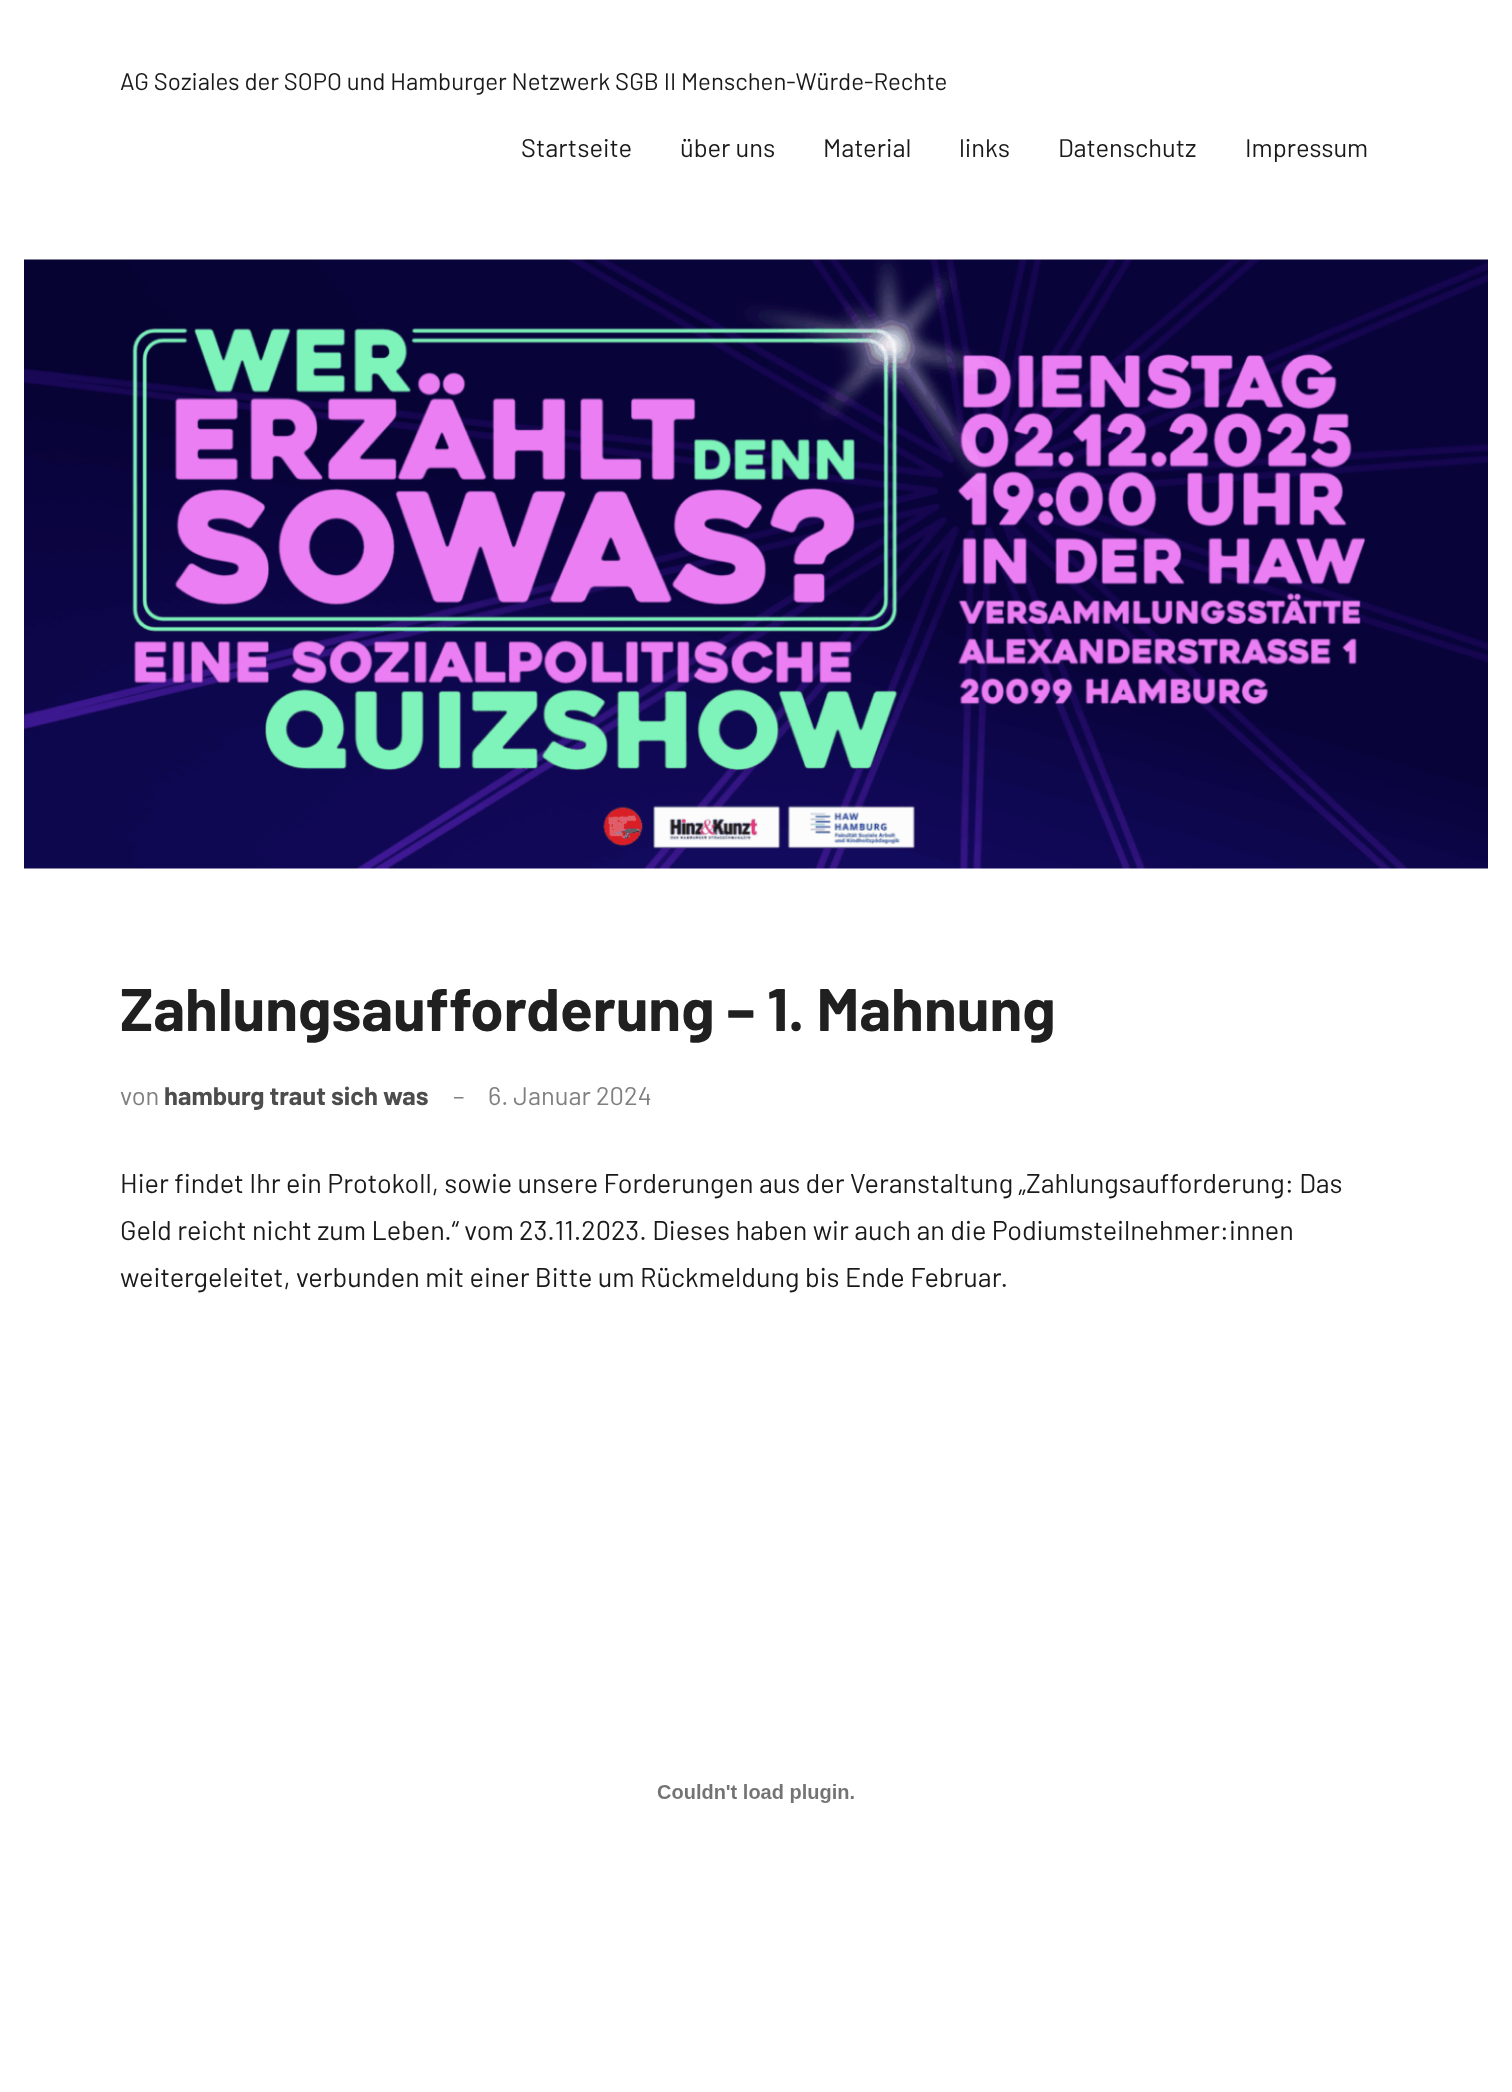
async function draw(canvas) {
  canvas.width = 1512
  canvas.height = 2092
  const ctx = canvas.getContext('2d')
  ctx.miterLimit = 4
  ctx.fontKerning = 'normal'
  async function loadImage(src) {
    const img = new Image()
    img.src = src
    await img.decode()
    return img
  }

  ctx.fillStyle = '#fff'
  ctx.fillRect(0, 0, 1512, 2092)
  ctx.font = '24px Barlow'
  ctx.fillStyle = '#1a1a1a'
  ctx.fillText('AG Soziales der SOPO und Hamburger Netzwerk SGB II Menschen-Würde-Rechte', 120, 90)
  ctx.font = '25.5px Barlow'
  ctx.fillText('Startseite', 521, 157)
  ctx.fillText('über uns', 680, 157)
  ctx.fillText('Material', 823, 157)
  ctx.fillText('links', 959, 157)
  ctx.fillText('Datenschutz', 1058, 157)
  ctx.fillText('Impressum', 1245, 157)
  ctx.drawImage(await loadImage('image0.png'), 24, 259, 1464, 610)
  ctx.font = 'bold 60px Barlow'
  ctx.fillStyle = '#202020'
  ctx.fillText('Zahlungsaufforderung – 1. Mahnung', 120, 1031)
  ctx.font = '25.5px Barlow'
  ctx.fillStyle = '#808080'
  ctx.fillText('von', 120, 1105)
  ctx.font = 'bold 25.5px Barlow'
  ctx.fillStyle = '#4d4d4d'
  ctx.fillText('hamburg traut sich was', 164, 1105)
  ctx.font = '25.5px Barlow'
  ctx.fillStyle = '#808080'
  ctx.fillText('–', 453, 1105)
  ctx.fillText('6. Januar 2024', 488, 1105)
  ctx.font = '27px Barlow'
  ctx.fillStyle = '#1a1a1a'
  ctx.fillText('Hier findet Ihr ein Protokoll, sowie unsere Forderungen aus der Veranstaltung „Zahlungsaufforderung: Das', 120, 1193)
  ctx.fillText('Geld reicht nicht zum Leben.“ vom 23.11.2023. Dieses haben wir auch an die Podiumsteilnehmer:innen', 120, 1240)
  ctx.fillText('weitergeleitet, verbunden mit einer Bitte um Rückmeldung bis Ende Februar.', 120, 1287)
  ctx.drawImage(await loadImage('image1.png'), 657, 1784, 197, 19)
}

draw(document.querySelector('canvas'))
